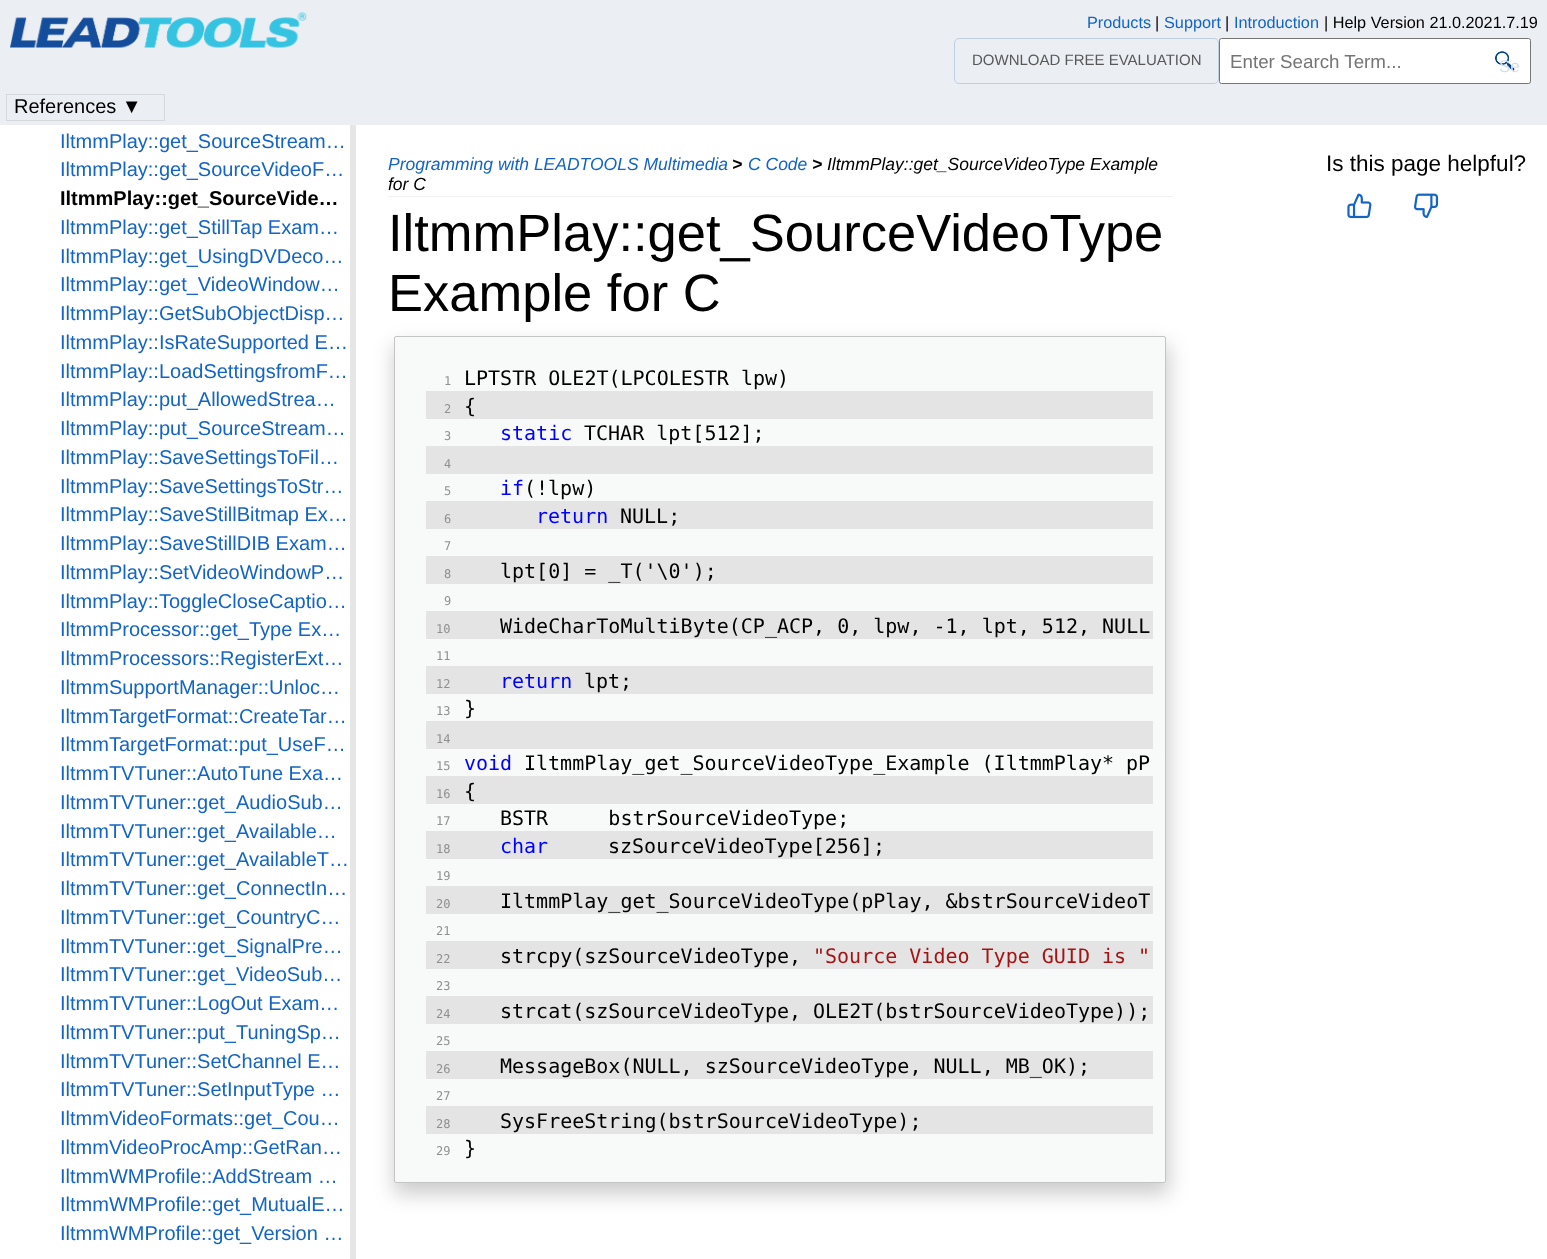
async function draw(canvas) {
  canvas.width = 1547
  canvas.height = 1259
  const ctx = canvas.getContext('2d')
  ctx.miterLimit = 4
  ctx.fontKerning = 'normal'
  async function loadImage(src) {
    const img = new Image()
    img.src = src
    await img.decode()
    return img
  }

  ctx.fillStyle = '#fff'
  ctx.fillRect(0, 0, 1547, 1259)
  ctx.fillStyle = '#ebeef3'
  ctx.fillRect(0, 0, 1547, 125)
  ctx.drawImage(await loadImage('image0.png'), 10, 12, 297, 36)
  ctx.font = '16.25px Liberation Sans'
  ctx.fillStyle = '#1364c4'
  ctx.fillText('Products', 1087, 28)
  ctx.fillStyle = '#000'
  ctx.fillText('|', 1155, 28)
  ctx.fillStyle = '#1364c4'
  ctx.fillText('Support', 1164, 28)
  ctx.fillStyle = '#000'
  ctx.fillText('|', 1225, 28)
  ctx.fillStyle = '#1364c4'
  ctx.fillText('Introduction', 1234, 28)
  ctx.fillStyle = '#000'
  ctx.fillText('| Help Version 21.0.2021.7.19', 1324, 28)
  ctx.beginPath()
  ctx.roundRect(954.5, 38.5, 264, 45, 4.5)
  ctx.strokeStyle = '#c0cee1'
  ctx.stroke()
  ctx.font = '15px Liberation Sans'
  ctx.fillStyle = '#585858'
  ctx.fillText('DOWNLOAD FREE EVALUATION', 972, 65)
  ctx.fillStyle = '#fff'
  ctx.beginPath()
  ctx.roundRect(1219.5, 38.5, 311, 45, 2)
  ctx.fill()
  ctx.strokeStyle = '#767676'
  ctx.stroke()
  ctx.font = '18.75px Liberation Sans'
  ctx.fillStyle = '#757575'
  ctx.fillText('Enter Search Term...', 1230, 68)
  ctx.drawImage(await loadImage('image1.png'), 1495, 51, 20, 20)
  ctx.font = '17px Liberation Sans'
  ctx.fillStyle = '#d3deeb'
  ctx.fillText('Se', 1499, 72)
  ctx.strokeStyle = '#d6d8dc'
  ctx.strokeRect(6.5, 94.5, 158, 26)
  ctx.font = '20px Liberation Sans'
  ctx.fillStyle = '#000'
  ctx.fillText('References ▼', 14, 113)
  ctx.fillStyle = '#e6e6e6'
  ctx.fillRect(350, 125, 6, 1134)
  ctx.fillStyle = '#1364c4'
  ctx.fillText('IltmmPlay::get_SourceStream…', 60, 148)
  ctx.fillText('IltmmPlay::get_SourceVideoF…', 60, 176)
  ctx.font = 'bold 20px Liberation Sans'
  ctx.fillStyle = '#000'
  ctx.fillText('IltmmPlay::get_SourceVide…', 60, 205)
  ctx.font = '20px Liberation Sans'
  ctx.fillStyle = '#1364c4'
  ctx.fillText('IltmmPlay::get_StillTap Exam…', 60, 234)
  ctx.fillText('IltmmPlay::get_UsingDVDeco…', 60, 263)
  ctx.fillText('IltmmPlay::get_VideoWindow…', 60, 291)
  ctx.fillText('IltmmPlay::GetSubObjectDisp…', 60, 320)
  ctx.fillText('IltmmPlay::IsRateSupported E…', 60, 349)
  ctx.fillText('IltmmPlay::LoadSettingsfromF…', 60, 378)
  ctx.fillText('IltmmPlay::put_AllowedStrea…', 60, 406)
  ctx.fillText('IltmmPlay::put_SourceStream…', 60, 435)
  ctx.fillText('IltmmPlay::SaveSettingsToFil…', 60, 464)
  ctx.fillText('IltmmPlay::SaveSettingsToStr…', 60, 493)
  ctx.fillText('IltmmPlay::SaveStillBitmap Ex…', 60, 521)
  ctx.fillText('IltmmPlay::SaveStillDIB Exam…', 60, 550)
  ctx.fillText('IltmmPlay::SetVideoWindowP…', 60, 579)
  ctx.fillText('IltmmPlay::ToggleCloseCaptio…', 60, 608)
  ctx.fillText('IltmmProcessor::get_Type Ex…', 60, 636)
  ctx.fillText('IltmmProcessors::RegisterExt…', 60, 665)
  ctx.fillText('IltmmSupportManager::Unloc…', 60, 694)
  ctx.fillText('IltmmTargetFormat::CreateTar…', 60, 723)
  ctx.fillText('IltmmTargetFormat::put_UseF…', 60, 751)
  ctx.fillText('IltmmTVTuner::AutoTune Exa…', 60, 780)
  ctx.fillText('IltmmTVTuner::get_AudioSub…', 60, 809)
  ctx.fillText('IltmmTVTuner::get_Available…', 60, 838)
  ctx.fillText('IltmmTVTuner::get_AvailableT…', 60, 866)
  ctx.fillText('IltmmTVTuner::get_ConnectIn…', 60, 895)
  ctx.fillText('IltmmTVTuner::get_CountryC…', 60, 924)
  ctx.fillText('IltmmTVTuner::get_SignalPre…', 60, 953)
  ctx.fillText('IltmmTVTuner::get_VideoSub…', 60, 981)
  ctx.fillText('IltmmTVTuner::LogOut Exam…', 60, 1010)
  ctx.fillText('IltmmTVTuner::put_TuningSp…', 60, 1039)
  ctx.fillText('IltmmTVTuner::SetChannel E…', 60, 1068)
  ctx.fillText('IltmmTVTuner::SetInputType …', 60, 1096)
  ctx.fillText('IltmmVideoFormats::get_Cou…', 60, 1125)
  ctx.fillText('IltmmVideoProcAmp::GetRan…', 60, 1154)
  ctx.fillText('IltmmWMProfile::AddStream …', 60, 1183)
  ctx.fillText('IltmmWMProfile::get_MutualE…', 60, 1211)
  ctx.fillText('IltmmWMProfile::get_Version …', 60, 1240)
  ctx.fillStyle = '#f1f1f1'
  ctx.fillRect(388, 196, 785, 1)
  ctx.font = 'italic 17.5px Liberation Sans'
  ctx.fillStyle = '#1364c4'
  ctx.fillText('Programming with LEADTOOLS Multimedia', 388, 170)
  ctx.font = 'italic bold 17.5px Liberation Sans'
  ctx.fillStyle = '#000'
  ctx.fillText('>', 732, 170)
  ctx.font = 'italic 17.5px Liberation Sans'
  ctx.fillStyle = '#1364c4'
  ctx.fillText('C Code', 748, 170)
  ctx.font = 'italic bold 17.5px Liberation Sans'
  ctx.fillStyle = '#000'
  ctx.fillText('>', 812, 170)
  ctx.font = 'italic 17.5px Liberation Sans'
  ctx.fillText('IltmmPlay::get_SourceVideoType Example', 827, 170)
  ctx.fillText('for C', 388, 190)
  ctx.font = '22.5px Liberation Sans'
  ctx.fillText('Is this page helpful?', 1326, 171)
  ctx.drawImage(await loadImage('image2.png'), 1347, 193, 25, 26)
  ctx.drawImage(await loadImage('image3.png'), 1414, 193, 25, 25)
  ctx.font = '52.5px Liberation Sans'
  ctx.fillText('IltmmPlay::get_SourceVideoType', 388, 251)
  ctx.fillText('Example for C', 388, 311)
  ctx.save()
  ctx.beginPath()
  ctx.moveTo(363, 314)
  ctx.lineTo(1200, 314)
  ctx.lineTo(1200, 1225)
  ctx.lineTo(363, 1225)
  ctx.closePath()
  ctx.moveTo(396, 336)
  ctx.lineTo(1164, 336)
  ctx.bezierCurveTo(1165, 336, 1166, 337, 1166, 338)
  ctx.lineTo(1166, 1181)
  ctx.bezierCurveTo(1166, 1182, 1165, 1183, 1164, 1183)
  ctx.lineTo(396, 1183)
  ctx.bezierCurveTo(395, 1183, 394, 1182, 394, 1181)
  ctx.lineTo(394, 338)
  ctx.bezierCurveTo(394, 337, 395, 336, 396, 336)
  ctx.closePath()
  ctx.clip('evenodd')
  ctx.fillStyle = '#00000033'
  ctx.filter = 'blur(10px)'
  ctx.beginPath()
  ctx.roundRect(394, 345, 775, 849, 3)
  ctx.fill()
  ctx.filter = 'none'
  ctx.restore()
  ctx.fillStyle = '#eeeff066'
  ctx.beginPath()
  ctx.roundRect(394, 336, 772, 847, 2)
  ctx.fill()
  ctx.beginPath()
  ctx.roundRect(394.5, 336.5, 771, 846, 1.5)
  ctx.strokeStyle = '#76767666'
  ctx.stroke()
  ctx.fillStyle = '#e4e4e4'
  ctx.fillRect(426, 391, 727, 28)
  ctx.fillRect(426, 446, 727, 28)
  ctx.fillRect(426, 501, 727, 28)
  ctx.fillRect(426, 556, 727, 28)
  ctx.fillRect(426, 611, 727, 28)
  ctx.fillRect(426, 666, 727, 28)
  ctx.fillRect(426, 721, 727, 28)
  ctx.fillRect(426, 776, 727, 28)
  ctx.fillRect(426, 831, 727, 28)
  ctx.fillRect(426, 886, 727, 28)
  ctx.fillRect(426, 941, 727, 28)
  ctx.fillRect(426, 996, 727, 28)
  ctx.fillRect(426, 1051, 727, 28)
  ctx.fillRect(426, 1106, 727, 28)
  ctx.font = '12px DejaVu Sans Mono'
  ctx.fillStyle = '#909090'
  ctx.fillText('1', 444, 385)
  ctx.font = '20px DejaVu Sans Mono'
  ctx.fillStyle = '#000'
  ctx.fillText('LPTSTR OLE2T(LPCOLESTR lpw)', 464, 385)
  ctx.font = '12px DejaVu Sans Mono'
  ctx.fillStyle = '#909090'
  ctx.fillText('2', 444, 413)
  ctx.font = '20px DejaVu Sans Mono'
  ctx.fillStyle = '#000'
  ctx.fillText('{', 464, 413)
  ctx.font = '12px DejaVu Sans Mono'
  ctx.fillStyle = '#909090'
  ctx.fillText('3', 444, 440)
  ctx.font = '20px DejaVu Sans Mono'
  ctx.fillStyle = '#00f'
  ctx.fillText('static', 500, 440)
  ctx.fillStyle = '#000'
  ctx.fillText('TCHAR lpt[512];', 584, 440)
  ctx.font = '12px DejaVu Sans Mono'
  ctx.fillStyle = '#909090'
  ctx.fillText('4', 444, 468)
  ctx.fillText('5', 444, 495)
  ctx.font = '20px DejaVu Sans Mono'
  ctx.fillStyle = '#00f'
  ctx.fillText('if', 500, 495)
  ctx.fillStyle = '#000'
  ctx.fillText('(!lpw)', 524, 495)
  ctx.font = '12px DejaVu Sans Mono'
  ctx.fillStyle = '#909090'
  ctx.fillText('6', 444, 523)
  ctx.font = '20px DejaVu Sans Mono'
  ctx.fillStyle = '#00f'
  ctx.fillText('return', 536, 523)
  ctx.fillStyle = '#000'
  ctx.fillText('NULL;', 620, 523)
  ctx.font = '12px DejaVu Sans Mono'
  ctx.fillStyle = '#909090'
  ctx.fillText('7', 444, 550)
  ctx.fillText('8', 444, 578)
  ctx.font = '20px DejaVu Sans Mono'
  ctx.fillStyle = '#000'
  ctx.fillText('lpt[0] = _T(\'\\0\');', 500, 578)
  ctx.font = '12px DejaVu Sans Mono'
  ctx.fillStyle = '#909090'
  ctx.fillText('9', 444, 605)
  ctx.fillText('10', 436, 633)
  ctx.font = '20px DejaVu Sans Mono'
  ctx.fillStyle = '#000'
  ctx.fillText('WideCharToMultiByte(CP_ACP, 0, lpw, -1, lpt, 512, NULL', 500, 633)
  ctx.font = '12px DejaVu Sans Mono'
  ctx.fillStyle = '#909090'
  ctx.fillText('11', 436, 660)
  ctx.fillText('12', 436, 688)
  ctx.font = '20px DejaVu Sans Mono'
  ctx.fillStyle = '#00f'
  ctx.fillText('return', 500, 688)
  ctx.fillStyle = '#000'
  ctx.fillText('lpt;', 584, 688)
  ctx.font = '12px DejaVu Sans Mono'
  ctx.fillStyle = '#909090'
  ctx.fillText('13', 436, 715)
  ctx.font = '20px DejaVu Sans Mono'
  ctx.fillStyle = '#000'
  ctx.fillText('}', 464, 715)
  ctx.font = '12px DejaVu Sans Mono'
  ctx.fillStyle = '#909090'
  ctx.fillText('14', 436, 743)
  ctx.fillText('15', 436, 770)
  ctx.font = '20px DejaVu Sans Mono'
  ctx.fillStyle = '#00f'
  ctx.fillText('void', 464, 770)
  ctx.fillStyle = '#000'
  ctx.fillText('IltmmPlay_get_SourceVideoType_Example (IltmmPlay* pP', 524, 770)
  ctx.font = '12px DejaVu Sans Mono'
  ctx.fillStyle = '#909090'
  ctx.fillText('16', 436, 798)
  ctx.font = '20px DejaVu Sans Mono'
  ctx.fillStyle = '#000'
  ctx.fillText('{', 464, 798)
  ctx.font = '12px DejaVu Sans Mono'
  ctx.fillStyle = '#909090'
  ctx.fillText('17', 436, 825)
  ctx.font = '20px DejaVu Sans Mono'
  ctx.fillStyle = '#000'
  ctx.fillText('BSTR     bstrSourceVideoType;', 500, 825)
  ctx.font = '12px DejaVu Sans Mono'
  ctx.fillStyle = '#909090'
  ctx.fillText('18', 436, 853)
  ctx.font = '20px DejaVu Sans Mono'
  ctx.fillStyle = '#00f'
  ctx.fillText('char', 500, 853)
  ctx.fillStyle = '#000'
  ctx.fillText('szSourceVideoType[256];', 608, 853)
  ctx.font = '12px DejaVu Sans Mono'
  ctx.fillStyle = '#909090'
  ctx.fillText('19', 436, 880)
  ctx.fillText('20', 436, 908)
  ctx.font = '20px DejaVu Sans Mono'
  ctx.fillStyle = '#000'
  ctx.fillText('IltmmPlay_get_SourceVideoType(pPlay, &bstrSourceVideoT', 500, 908)
  ctx.font = '12px DejaVu Sans Mono'
  ctx.fillStyle = '#909090'
  ctx.fillText('21', 436, 935)
  ctx.fillText('22', 436, 963)
  ctx.font = '20px DejaVu Sans Mono'
  ctx.fillStyle = '#000'
  ctx.fillText('strcpy(szSourceVideoType,', 500, 963)
  ctx.fillStyle = '#a31515'
  ctx.fillText('"Source Video Type GUID is "', 813, 963)
  ctx.font = '12px DejaVu Sans Mono'
  ctx.fillStyle = '#909090'
  ctx.fillText('23', 436, 990)
  ctx.fillText('24', 436, 1018)
  ctx.font = '20px DejaVu Sans Mono'
  ctx.fillStyle = '#000'
  ctx.fillText('strcat(szSourceVideoType, OLE2T(bstrSourceVideoType));', 500, 1018)
  ctx.font = '12px DejaVu Sans Mono'
  ctx.fillStyle = '#909090'
  ctx.fillText('25', 436, 1045)
  ctx.fillText('26', 436, 1073)
  ctx.font = '20px DejaVu Sans Mono'
  ctx.fillStyle = '#000'
  ctx.fillText('MessageBox(NULL, szSourceVideoType, NULL, MB_OK);', 500, 1073)
  ctx.font = '12px DejaVu Sans Mono'
  ctx.fillStyle = '#909090'
  ctx.fillText('27', 436, 1100)
  ctx.fillText('28', 436, 1128)
  ctx.font = '20px DejaVu Sans Mono'
  ctx.fillStyle = '#000'
  ctx.fillText('SysFreeString(bstrSourceVideoType);', 500, 1128)
  ctx.font = '12px DejaVu Sans Mono'
  ctx.fillStyle = '#909090'
  ctx.fillText('29', 436, 1155)
  ctx.font = '20px DejaVu Sans Mono'
  ctx.fillStyle = '#000'
  ctx.fillText('}', 464, 1155)
}

draw(document.querySelector('canvas'))
